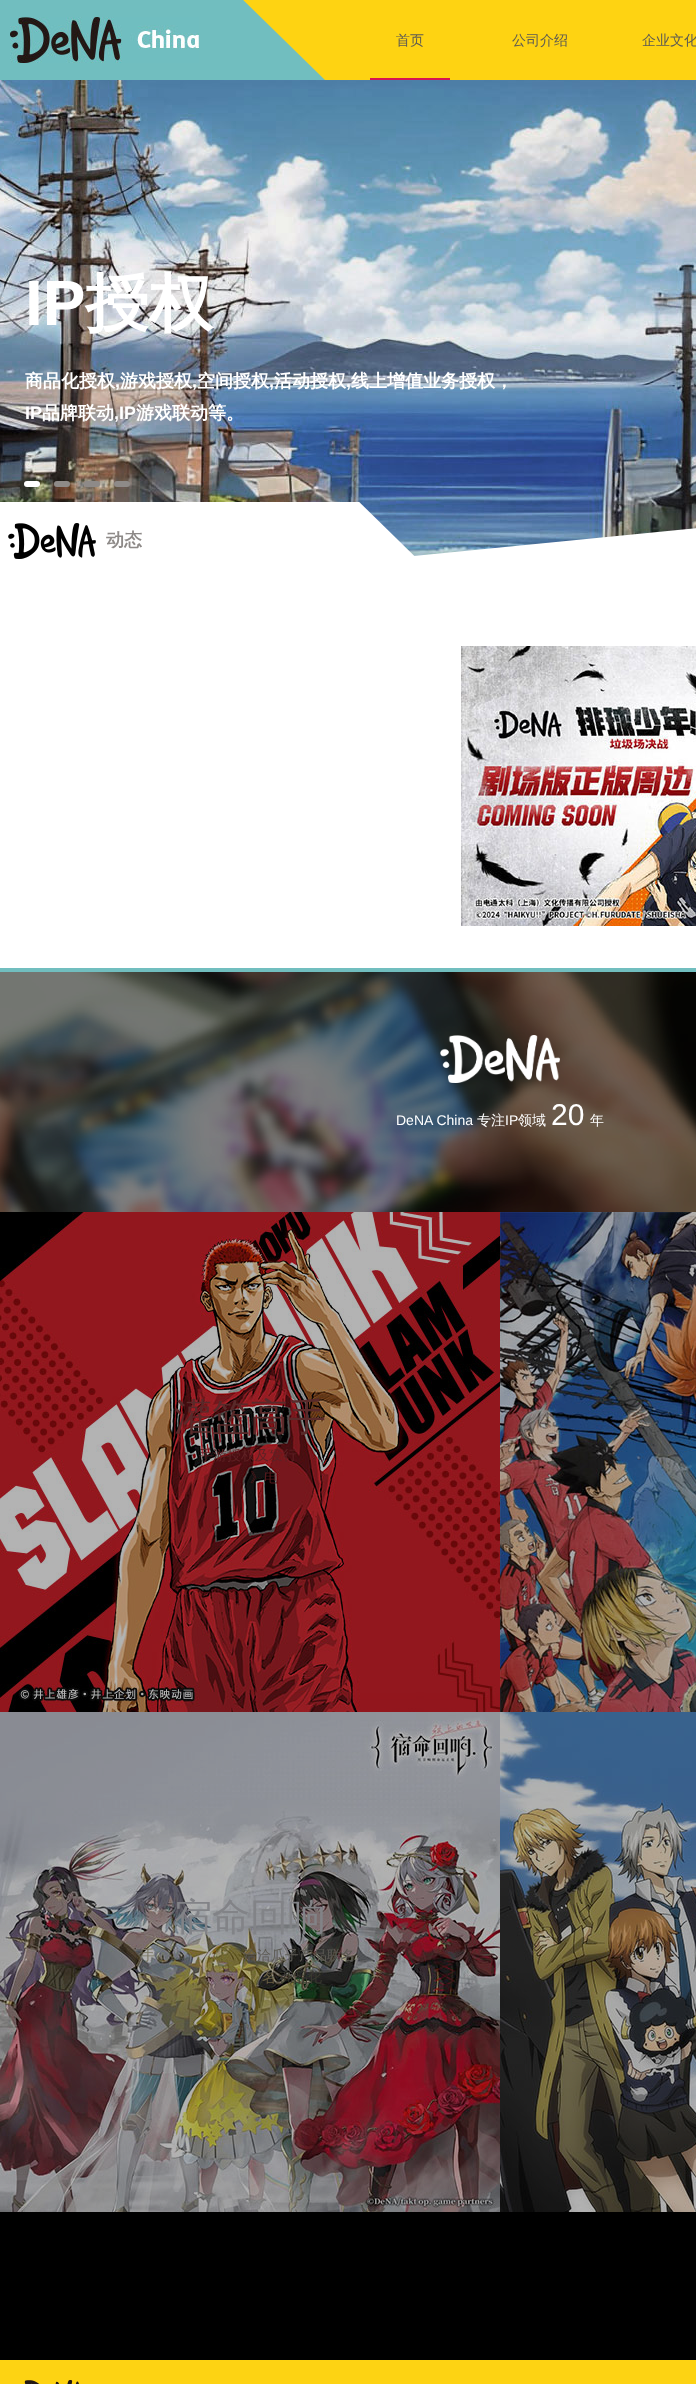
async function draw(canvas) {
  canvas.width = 696
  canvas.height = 2384
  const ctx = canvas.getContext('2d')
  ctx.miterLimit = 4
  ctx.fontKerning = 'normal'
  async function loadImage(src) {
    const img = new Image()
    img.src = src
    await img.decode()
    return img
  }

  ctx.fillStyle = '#fdd313'
  ctx.fillRect(0, 0, 696, 2384)
  ctx.drawImage(await loadImage('image0.png'), 0, 0, 696, 80)
  ctx.drawImage(await loadImage('image1.png'), 10, 17, 189, 46)
  ctx.font = '500 14px WenQuanYi Zen Hei'
  ctx.fillStyle = '#5c5a54'
  ctx.fillText('首页', 396, 45)
  ctx.fillStyle = '#d61453'
  ctx.fillRect(370, 78, 80, 2)
  ctx.fillStyle = '#5c5a54'
  ctx.fillText('公司介绍', 512, 45)
  ctx.fillText('企业文化', 642, 45)
  ctx.fillStyle = '#000'
  ctx.fillRect(0, 2212, 696, 148)
  ctx.drawImage(await loadImage('image2.png'), 0, 80, 696, 476)
  ctx.font = 'bold 64px Liberation Sans'
  ctx.fillStyle = '#fff'
  ctx.fillText('IP', 25, 325)
  ctx.font = 'bold 64px WenQuanYi Zen Hei'
  ctx.fillText('授权', 85, 325)
  ctx.font = 'bold 18px WenQuanYi Zen Hei'
  ctx.fillText('商品化授权', 25, 387)
  ctx.font = 'bold 18px Liberation Sans'
  ctx.fillText(',', 115, 387)
  ctx.font = 'bold 18px WenQuanYi Zen Hei'
  ctx.fillText('游戏授权', 120, 387)
  ctx.font = 'bold 18px Liberation Sans'
  ctx.fillText(',', 192, 387)
  ctx.font = 'bold 18px WenQuanYi Zen Hei'
  ctx.fillText('空间授权', 197, 387)
  ctx.font = 'bold 18px Liberation Sans'
  ctx.fillText(',', 269, 387)
  ctx.font = 'bold 18px WenQuanYi Zen Hei'
  ctx.fillText('活动授权', 274, 387)
  ctx.font = 'bold 18px Liberation Sans'
  ctx.fillText(',', 346, 387)
  ctx.font = 'bold 18px WenQuanYi Zen Hei'
  ctx.fillText('线上增值业务授权，', 351, 387)
  ctx.font = 'bold 18px Liberation Sans'
  ctx.fillText('IP', 25, 419)
  ctx.font = 'bold 18px WenQuanYi Zen Hei'
  ctx.fillText('品牌联动', 42, 419)
  ctx.font = 'bold 18px Liberation Sans'
  ctx.fillText(',IP', 114, 419)
  ctx.font = 'bold 18px WenQuanYi Zen Hei'
  ctx.fillText('游戏联动等。', 136, 419)
  ctx.beginPath()
  ctx.roundRect(24, 481, 16, 6, 3)
  ctx.fill()
  ctx.fillStyle = '#8e8a88'
  ctx.beginPath()
  ctx.roundRect(54, 481, 16, 6, 3)
  ctx.fill()
  ctx.beginPath()
  ctx.roundRect(84, 481, 16, 6, 3)
  ctx.fill()
  ctx.beginPath()
  ctx.roundRect(114, 481, 16, 6, 3)
  ctx.fill()
  ctx.drawImage(await loadImage('image3.png'), 0, 502, 696, 466)
  ctx.fillStyle = '#71bebf'
  ctx.fillRect(0, 968, 696, 4)
  ctx.drawImage(await loadImage('image4.png'), 461, 646, 235, 280)
  ctx.drawImage(await loadImage('image5.png'), 8, 523, 88, 36)
  ctx.fillStyle = '#8e8a88'
  ctx.fillText('动态', 106, 546)
  ctx.drawImage(await loadImage('image6.png'), 0, 972, 696, 240)
  ctx.drawImage(await loadImage('image7.png'), 440, 1035, 120, 48)
  ctx.font = '14px Liberation Sans'
  ctx.fillStyle = '#fff'
  ctx.fillText('DeNA China', 396, 1125)
  ctx.font = '500 14px WenQuanYi Zen Hei'
  ctx.fillText('专注', 477, 1125)
  ctx.font = '14px Liberation Sans'
  ctx.fillText('IP', 505, 1125)
  ctx.font = '500 14px WenQuanYi Zen Hei'
  ctx.fillText('领域', 518, 1125)
  ctx.font = '30px Liberation Sans'
  ctx.fillText('20', 551, 1125)
  ctx.font = '500 14px WenQuanYi Zen Hei'
  ctx.fillText('年', 590, 1125)
  ctx.drawImage(await loadImage('image8.png'), 0, 1212, 500, 500)
  ctx.font = '500 38px WenQuanYi Zen Hei'
  ctx.fillStyle = '#592a2a'
  ctx.fillText('灌篮高手', 174, 1430)
  ctx.font = '500 14px WenQuanYi Zen Hei'
  ctx.fillStyle = '#5f2124'
  ctx.fillText('手游授权及发行', 199, 1460)
  ctx.fillStyle = '#581a1d'
  ctx.fillText('》电', 250, 1482)
  ctx.drawImage(await loadImage('image9.png'), 500, 1212, 196, 500)
  ctx.drawImage(await loadImage('image10.png'), 0, 1712, 500, 500)
  ctx.font = '500 38px WenQuanYi Zen Hei'
  ctx.fillStyle = '#828387'
  ctx.fillText('宿命回响', 174, 1930)
  ctx.font = '500 14px WenQuanYi Zen Hei'
  ctx.fillStyle = '#797561'
  ctx.fillText('手', 141, 1960)
  ctx.fillStyle = '#5c5a54'
  ctx.fillText('洽洽瓜子产品联名', 243, 1960)
  ctx.fillStyle = '#6a5f45'
  ctx.fillText('名', 262, 1982)
  ctx.fillStyle = '#393a30'
  ctx.fillText('商品化', 280, 1982)
  ctx.drawImage(await loadImage('image11.png'), 500, 1712, 196, 500)
  ctx.drawImage(await loadImage('image12.png'), 24, 2380, 55, 4)
}

draw(document.querySelector('canvas'))
